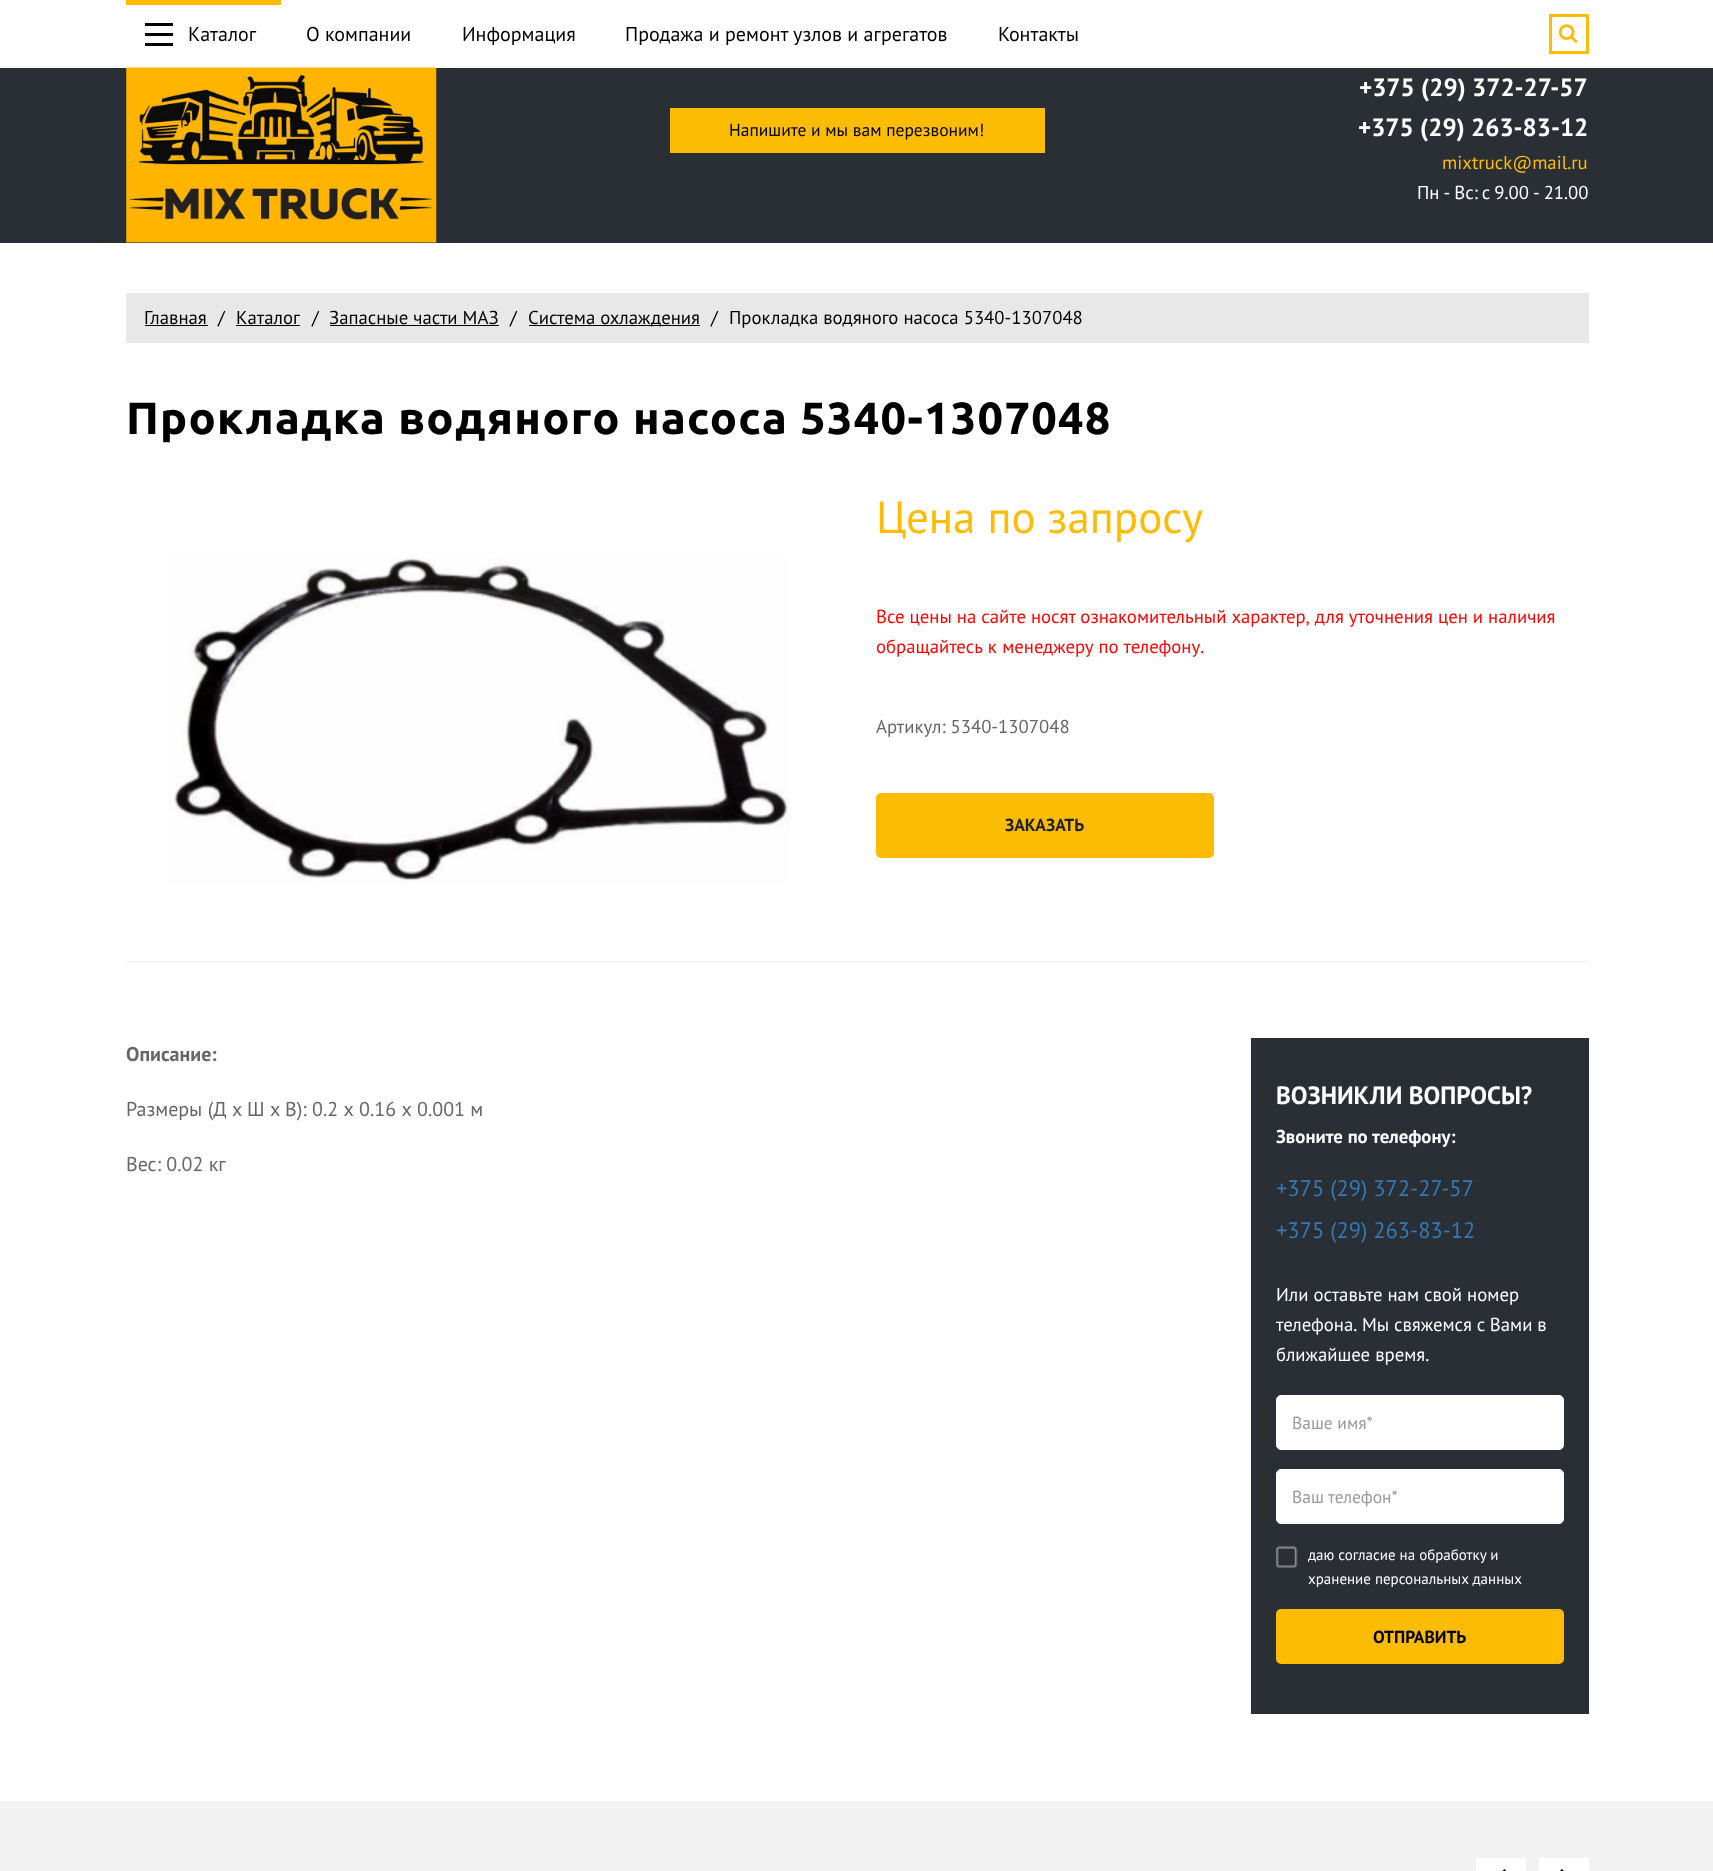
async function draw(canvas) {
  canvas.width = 1713
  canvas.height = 1871
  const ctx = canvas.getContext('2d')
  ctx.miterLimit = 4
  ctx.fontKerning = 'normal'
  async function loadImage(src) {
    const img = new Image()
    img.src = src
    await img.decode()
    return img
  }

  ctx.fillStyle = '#fff'
  ctx.fillRect(0, 0, 1713, 1871)
  ctx.fillStyle = '#fcbc04'
  ctx.fillRect(126, 0, 155, 5)
  ctx.fillStyle = '#000'
  ctx.fillRect(145, 23, 28, 3)
  ctx.fillRect(145, 43, 28, 3)
  ctx.font = '20px PT Sans'
  ctx.fillText('Каталог', 188, 41)
  ctx.fillRect(145, 33, 28, 3)
  ctx.fillText('О компании', 306, 41)
  ctx.fillText('Информация', 462, 41)
  ctx.fillText('Продажа и ремонт узлов и агрегатов', 625, 41)
  ctx.fillText('Контакты', 998, 41)
  ctx.strokeStyle = '#fcbc04'
  ctx.lineWidth = 3
  ctx.strokeRect(1550.5, 15.5, 37, 37)
  ctx.drawImage(await loadImage('image0.png'), 1558, 24, 20, 19)
  ctx.fillStyle = '#292f35'
  ctx.fillRect(0, 68, 1713, 175)
  ctx.drawImage(await loadImage('image1.png'), 126, 67, 311, 176)
  ctx.fillStyle = '#fcbc04'
  ctx.fillRect(670, 108, 375, 45)
  ctx.font = '17.5px PT Sans'
  ctx.fillStyle = '#000'
  ctx.fillText('Напишите и мы вам перезвоним!', 729, 136)
  ctx.font = 'bold 25px PT Sans'
  ctx.fillStyle = '#fff'
  ctx.fillText('+375 (29) 372-27-57', 1359, 96)
  ctx.fillText('+375 (29) 263-83-12', 1358, 136)
  ctx.font = '18.75px PT Sans'
  ctx.fillStyle = '#fcbc04'
  ctx.fillText('mixtruck@mail.ru', 1442, 169)
  ctx.wordSpacing = '-1px'
  ctx.fillStyle = '#fff'
  ctx.fillText('Пн - Вс: c 9.00 - 21.00', 1417, 199)
  ctx.fillStyle = '#e8e8e8'
  ctx.fillRect(126, 293, 1463, 50)
  ctx.wordSpacing = '0px'
  ctx.fillStyle = '#000'
  ctx.fillText('Главная', 144, 324)
  ctx.fillRect(145, 325, 63, 1)
  ctx.fillText('/', 218, 324)
  ctx.fillText('Каталог', 236, 324)
  ctx.fillRect(236, 325, 64, 1)
  ctx.fillText('/', 312, 324)
  ctx.fillText('Запасные части МАЗ', 329, 324)
  ctx.fillRect(330, 325, 169, 1)
  ctx.fillText('/', 510, 324)
  ctx.fillRect(529, 325, 171, 1)
  ctx.fillText('Система охлаждения', 528, 324)
  ctx.fillText('/', 711, 324)
  ctx.fillText('Прокладка водяного насоса 5340-1307048', 729, 324)
  ctx.letterSpacing = '1.25px'
  ctx.font = 'bold 45px Ubuntu'
  ctx.fillText('Прокладка водяного насоса 5340-1307048', 126, 434)
  ctx.drawImage(await loadImage('image2.png'), 168, 557, 622, 328)
  ctx.letterSpacing = '0px'
  ctx.font = '45px PT Sans'
  ctx.fillStyle = '#fcbc04'
  ctx.fillText('Цена по запросу', 876, 533)
  ctx.font = '18.75px PT Sans'
  ctx.fillStyle = '#f00'
  ctx.fillText('Все цены на сайте носят ознакомительный характер, для уточнения цен и наличия', 876, 623)
  ctx.wordSpacing = '0.5px'
  ctx.fillText('обращайтесь к менеджеру по телефону.', 876, 653)
  ctx.wordSpacing = '0px'
  ctx.fillStyle = '#666'
  ctx.fillText('Артикул: 5340-1307048', 876, 733)
  ctx.fillStyle = '#fcbc04'
  ctx.beginPath()
  ctx.roundRect(876, 793, 338, 65, 5)
  ctx.fill()
  ctx.font = 'bold 17.5px PT Sans'
  ctx.fillStyle = '#222'
  ctx.fillText('ЗАКАЗАТЬ', 1005, 831)
  ctx.fillStyle = '#eee'
  ctx.fillRect(126, 961, 1463, 1)
  ctx.font = 'bold 20px PT Sans'
  ctx.fillStyle = '#666'
  ctx.fillText('Описание:', 126, 1061)
  ctx.font = '20px PT Sans'
  ctx.fillText('Размеры (Д х Ш х В): 0.2 x 0.16 x 0.001 м', 126, 1116)
  ctx.fillText('Вес: 0.02 кг', 126, 1171)
  ctx.fillStyle = '#292f35'
  ctx.fillRect(1251, 1038, 338, 676)
  ctx.font = 'bold 25px PT Sans'
  ctx.fillStyle = '#fff'
  ctx.fillText('ВОЗНИКЛИ ВОПРОСЫ?', 1276, 1104)
  ctx.font = 'bold 18.75px PT Sans'
  ctx.fillText('Звоните по телефону:', 1276, 1143)
  ctx.font = '22.5px PT Sans'
  ctx.fillStyle = '#337ab7'
  ctx.fillText('+375 (29) 372-27-57', 1276, 1196)
  ctx.fillText('+375 (29) 263-83-12', 1276, 1238)
  ctx.font = '18.75px PT Sans'
  ctx.fillStyle = '#fff'
  ctx.fillText('Или оставьте нам свой номер', 1276, 1301)
  ctx.wordSpacing = '-0.25px'
  ctx.fillText('телефона. Мы свяжемся с Вами в', 1276, 1331)
  ctx.wordSpacing = '0px'
  ctx.fillText('ближайшее время.', 1276, 1361)
  ctx.beginPath()
  ctx.roundRect(1276.5, 1395.5, 287, 54, 4.5)
  ctx.fill()
  ctx.strokeStyle = '#fff'
  ctx.lineWidth = 1
  ctx.stroke()
  ctx.font = '17.5px PT Sans'
  ctx.fillStyle = '#999'
  ctx.fillText('Ваше имя*', 1292, 1429)
  ctx.fillStyle = '#fff'
  ctx.beginPath()
  ctx.roundRect(1276.5, 1469.5, 287, 54, 4.5)
  ctx.fill()
  ctx.stroke()
  ctx.fillStyle = '#999'
  ctx.fillText('Ваш телефон*', 1292, 1503)
  ctx.drawImage(await loadImage('image3.png'), 1276, 1546, 22, 22)
  ctx.font = '15px PT Sans'
  ctx.fillStyle = '#fff'
  ctx.fillText('даю согласие на обработку и', 1308, 1560)
  ctx.fillText('хранение персональных данных', 1308, 1584)
  ctx.fillStyle = '#fcbc04'
  ctx.beginPath()
  ctx.roundRect(1276, 1609, 288, 55, 5)
  ctx.fill()
  ctx.font = 'bold 17.5px PT Sans'
  ctx.fillStyle = '#000'
  ctx.fillText('ОТПРАВИТЬ', 1373, 1643)
  ctx.fillStyle = '#f2f2f2'
  ctx.fillRect(0, 1801, 1713, 70)
  ctx.fillStyle = '#fff'
  ctx.fillRect(1476, 1858, 50, 13)
  ctx.fillStyle = '#141414'
  ctx.beginPath()
  ctx.moveTo(1504.5, 1869)
  ctx.lineTo(1506, 1870.5)
  ctx.lineTo(1492, 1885)
  ctx.lineTo(1490, 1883)
  ctx.closePath()
  ctx.fill()
  ctx.fillStyle = '#fff'
  ctx.fillRect(1539, 1858, 50, 13)
  ctx.fillStyle = '#141414'
  ctx.beginPath()
  ctx.moveTo(1574, 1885)
  ctx.lineTo(1560, 1870.5)
  ctx.lineTo(1562, 1869)
  ctx.lineTo(1576, 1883)
  ctx.closePath()
  ctx.fill()
}

draw(document.querySelector('canvas'))
